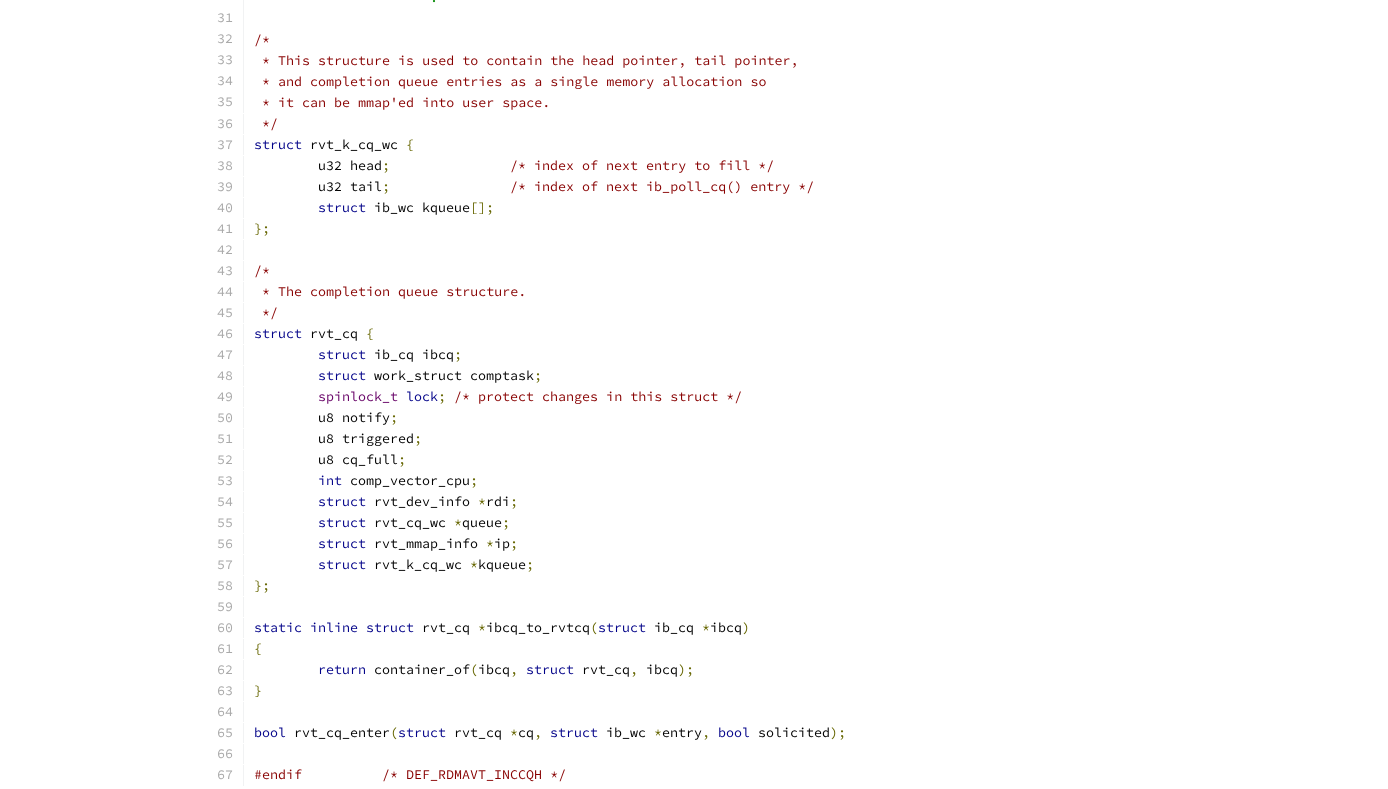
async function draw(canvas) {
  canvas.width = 1388
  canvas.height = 789
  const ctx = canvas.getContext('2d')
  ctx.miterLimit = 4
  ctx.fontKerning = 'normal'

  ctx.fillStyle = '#fff'
  ctx.fillRect(0, 0, 1388, 789)
  ctx.fillStyle = '#f1f2f3'
  ctx.fillRect(243, 0, 1, 113)
  ctx.font = '200 13.35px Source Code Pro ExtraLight'
  ctx.fillStyle = '#080'
  ctx.fillText('.', 430, 2)
  ctx.fillStyle = '#aaa'
  ctx.fillText('31', 217, 22)
  ctx.fillText('32', 217, 43)
  ctx.fillStyle = '#800'
  ctx.fillText('/*', 254, 44)
  ctx.fillStyle = '#aaa'
  ctx.fillText('33', 217, 64)
  ctx.fillStyle = '#800'
  ctx.fillText('* This structure is used to contain the head pointer, tail pointer,', 262, 65)
  ctx.fillStyle = '#aaa'
  ctx.fillText('34', 217, 85)
  ctx.fillStyle = '#800'
  ctx.fillText('* and completion queue entries as a single memory allocation so', 262, 86)
  ctx.fillStyle = '#aaa'
  ctx.fillText('35', 217, 106)
  ctx.fillStyle = '#800'
  ctx.fillText('* it can be mmap\'ed into user space.', 262, 107)
  ctx.fillStyle = '#f1f2f3'
  ctx.fillRect(243, 114, 1, 20)
  ctx.fillStyle = '#aaa'
  ctx.fillText('36', 217, 128)
  ctx.fillStyle = '#800'
  ctx.fillText('*/', 262, 128)
  ctx.fillStyle = '#f1f2f3'
  ctx.fillRect(243, 135, 1, 20)
  ctx.fillStyle = '#aaa'
  ctx.fillText('37', 217, 149)
  ctx.fillStyle = '#008'
  ctx.fillText('struct', 254, 149)
  ctx.fillStyle = '#000'
  ctx.fillText('rvt_k_cq_wc', 310, 149)
  ctx.fillStyle = '#660'
  ctx.fillText('{', 406, 149)
  ctx.fillStyle = '#f1f2f3'
  ctx.fillRect(243, 156, 1, 20)
  ctx.fillStyle = '#aaa'
  ctx.fillText('38', 217, 170)
  ctx.fillStyle = '#000'
  ctx.fillText('u32 head', 318, 170)
  ctx.fillStyle = '#660'
  ctx.fillText(';', 382, 170)
  ctx.fillStyle = '#800'
  ctx.fillText('/* index of next entry to fill */', 510, 170)
  ctx.fillStyle = '#f1f2f3'
  ctx.fillRect(243, 177, 1, 20)
  ctx.fillStyle = '#aaa'
  ctx.fillText('39', 217, 191)
  ctx.fillStyle = '#000'
  ctx.fillText('u32 tail', 318, 191)
  ctx.fillStyle = '#660'
  ctx.fillText(';', 382, 191)
  ctx.fillStyle = '#800'
  ctx.fillText('/* index of next ib_poll_cq() entry */', 510, 191)
  ctx.fillStyle = '#f1f2f3'
  ctx.fillRect(243, 198, 1, 20)
  ctx.fillStyle = '#aaa'
  ctx.fillText('40', 217, 212)
  ctx.fillStyle = '#008'
  ctx.fillText('struct', 318, 212)
  ctx.fillStyle = '#000'
  ctx.fillText('ib_wc kqueue', 374, 212)
  ctx.fillStyle = '#660'
  ctx.fillText('[];', 470, 212)
  ctx.fillStyle = '#f1f2f3'
  ctx.fillRect(243, 219, 1, 20)
  ctx.fillStyle = '#aaa'
  ctx.fillText('41', 217, 233)
  ctx.fillStyle = '#660'
  ctx.fillText('};', 254, 233)
  ctx.fillStyle = '#f1f2f3'
  ctx.fillRect(243, 240, 1, 20)
  ctx.fillStyle = '#aaa'
  ctx.fillText('42', 217, 254)
  ctx.fillStyle = '#f1f2f3'
  ctx.fillRect(243, 261, 1, 20)
  ctx.fillStyle = '#aaa'
  ctx.fillText('43', 217, 275)
  ctx.fillStyle = '#800'
  ctx.fillText('/*', 254, 275)
  ctx.fillStyle = '#f1f2f3'
  ctx.fillRect(243, 282, 1, 20)
  ctx.fillStyle = '#aaa'
  ctx.fillText('44', 217, 296)
  ctx.fillStyle = '#800'
  ctx.fillText('* The completion queue structure.', 262, 296)
  ctx.fillStyle = '#f1f2f3'
  ctx.fillRect(243, 303, 1, 20)
  ctx.fillStyle = '#aaa'
  ctx.fillText('45', 217, 317)
  ctx.fillStyle = '#800'
  ctx.fillText('*/', 262, 317)
  ctx.fillStyle = '#f1f2f3'
  ctx.fillRect(243, 324, 1, 20)
  ctx.fillStyle = '#aaa'
  ctx.fillText('46', 217, 338)
  ctx.fillStyle = '#008'
  ctx.fillText('struct', 254, 338)
  ctx.fillStyle = '#000'
  ctx.fillText('rvt_cq', 310, 338)
  ctx.fillStyle = '#660'
  ctx.fillText('{', 366, 338)
  ctx.fillStyle = '#f1f2f3'
  ctx.fillRect(243, 345, 1, 20)
  ctx.fillStyle = '#aaa'
  ctx.fillText('47', 217, 359)
  ctx.fillStyle = '#008'
  ctx.fillText('struct', 318, 359)
  ctx.fillStyle = '#000'
  ctx.fillText('ib_cq ibcq', 374, 359)
  ctx.fillStyle = '#660'
  ctx.fillText(';', 454, 359)
  ctx.fillStyle = '#f1f2f3'
  ctx.fillRect(243, 366, 1, 20)
  ctx.fillStyle = '#aaa'
  ctx.fillText('48', 217, 380)
  ctx.fillStyle = '#008'
  ctx.fillText('struct', 318, 380)
  ctx.fillStyle = '#000'
  ctx.fillText('work_struct comptask', 374, 380)
  ctx.fillStyle = '#660'
  ctx.fillText(';', 534, 380)
  ctx.fillStyle = '#f1f2f3'
  ctx.fillRect(243, 387, 1, 20)
  ctx.fillStyle = '#aaa'
  ctx.fillText('49', 217, 401)
  ctx.fillStyle = '#606'
  ctx.fillText('spinlock_t', 318, 401)
  ctx.fillStyle = '#008'
  ctx.fillText('lock', 406, 401)
  ctx.fillStyle = '#660'
  ctx.fillText(';', 438, 401)
  ctx.fillStyle = '#800'
  ctx.fillText('/* protect changes in this struct */', 454, 401)
  ctx.fillStyle = '#f1f2f3'
  ctx.fillRect(243, 408, 1, 20)
  ctx.fillStyle = '#aaa'
  ctx.fillText('50', 217, 422)
  ctx.fillStyle = '#000'
  ctx.fillText('u8 notify', 318, 422)
  ctx.fillStyle = '#660'
  ctx.fillText(';', 390, 422)
  ctx.fillStyle = '#f1f2f3'
  ctx.fillRect(243, 429, 1, 20)
  ctx.fillStyle = '#aaa'
  ctx.fillText('51', 217, 443)
  ctx.fillStyle = '#000'
  ctx.fillText('u8 triggered', 318, 443)
  ctx.fillStyle = '#660'
  ctx.fillText(';', 414, 443)
  ctx.fillStyle = '#f1f2f3'
  ctx.fillRect(243, 450, 1, 20)
  ctx.fillStyle = '#aaa'
  ctx.fillText('52', 217, 464)
  ctx.fillStyle = '#000'
  ctx.fillText('u8 cq_full', 318, 464)
  ctx.fillStyle = '#660'
  ctx.fillText(';', 398, 464)
  ctx.fillStyle = '#f1f2f3'
  ctx.fillRect(243, 471, 1, 20)
  ctx.fillStyle = '#aaa'
  ctx.fillText('53', 217, 485)
  ctx.fillStyle = '#008'
  ctx.fillText('int', 318, 485)
  ctx.fillStyle = '#000'
  ctx.fillText('comp_vector_cpu', 350, 485)
  ctx.fillStyle = '#660'
  ctx.fillText(';', 470, 485)
  ctx.fillStyle = '#f1f2f3'
  ctx.fillRect(243, 492, 1, 20)
  ctx.fillStyle = '#aaa'
  ctx.fillText('54', 217, 506)
  ctx.fillStyle = '#008'
  ctx.fillText('struct', 318, 506)
  ctx.fillStyle = '#000'
  ctx.fillText('rvt_dev_info', 374, 506)
  ctx.fillStyle = '#660'
  ctx.fillText('*', 478, 506)
  ctx.fillStyle = '#000'
  ctx.fillText('rdi', 486, 506)
  ctx.fillStyle = '#660'
  ctx.fillText(';', 510, 506)
  ctx.fillStyle = '#f1f2f3'
  ctx.fillRect(243, 513, 1, 20)
  ctx.fillStyle = '#aaa'
  ctx.fillText('55', 217, 527)
  ctx.fillStyle = '#008'
  ctx.fillText('struct', 318, 527)
  ctx.fillStyle = '#000'
  ctx.fillText('rvt_cq_wc', 374, 527)
  ctx.fillStyle = '#660'
  ctx.fillText('*', 454, 527)
  ctx.fillStyle = '#000'
  ctx.fillText('queue', 462, 527)
  ctx.fillStyle = '#660'
  ctx.fillText(';', 502, 527)
  ctx.fillStyle = '#f1f2f3'
  ctx.fillRect(243, 534, 1, 20)
  ctx.fillStyle = '#aaa'
  ctx.fillText('56', 217, 548)
  ctx.fillStyle = '#008'
  ctx.fillText('struct', 318, 548)
  ctx.fillStyle = '#000'
  ctx.fillText('rvt_mmap_info', 374, 548)
  ctx.fillStyle = '#660'
  ctx.fillText('*', 486, 548)
  ctx.fillStyle = '#000'
  ctx.fillText('ip', 494, 548)
  ctx.fillStyle = '#660'
  ctx.fillText(';', 510, 548)
  ctx.fillStyle = '#f1f2f3'
  ctx.fillRect(243, 555, 1, 20)
  ctx.fillStyle = '#aaa'
  ctx.fillText('57', 217, 569)
  ctx.fillStyle = '#008'
  ctx.fillText('struct', 318, 569)
  ctx.fillStyle = '#000'
  ctx.fillText('rvt_k_cq_wc', 374, 569)
  ctx.fillStyle = '#660'
  ctx.fillText('*', 470, 569)
  ctx.fillStyle = '#000'
  ctx.fillText('kqueue', 478, 569)
  ctx.fillStyle = '#660'
  ctx.fillText(';', 526, 569)
  ctx.fillStyle = '#f1f2f3'
  ctx.fillRect(243, 576, 1, 20)
  ctx.fillStyle = '#aaa'
  ctx.fillText('58', 217, 590)
  ctx.fillStyle = '#660'
  ctx.fillText('};', 254, 590)
  ctx.fillStyle = '#f1f2f3'
  ctx.fillRect(243, 597, 1, 20)
  ctx.fillStyle = '#aaa'
  ctx.fillText('59', 217, 611)
  ctx.fillStyle = '#f1f2f3'
  ctx.fillRect(243, 618, 1, 20)
  ctx.fillStyle = '#aaa'
  ctx.fillText('60', 217, 632)
  ctx.fillStyle = '#008'
  ctx.fillText('static inline struct', 254, 632)
  ctx.fillStyle = '#000'
  ctx.fillText('rvt_cq', 422, 632)
  ctx.fillStyle = '#660'
  ctx.fillText('*', 478, 632)
  ctx.fillStyle = '#000'
  ctx.fillText('ibcq_to_rvtcq', 486, 632)
  ctx.fillStyle = '#660'
  ctx.fillText('(', 590, 632)
  ctx.fillStyle = '#008'
  ctx.fillText('struct', 598, 632)
  ctx.fillStyle = '#000'
  ctx.fillText('ib_cq', 654, 632)
  ctx.fillStyle = '#660'
  ctx.fillText('*', 702, 632)
  ctx.fillStyle = '#000'
  ctx.fillText('ibcq', 710, 632)
  ctx.fillStyle = '#660'
  ctx.fillText(')', 742, 632)
  ctx.fillStyle = '#f1f2f3'
  ctx.fillRect(243, 639, 1, 20)
  ctx.fillStyle = '#aaa'
  ctx.fillText('61', 217, 653)
  ctx.fillStyle = '#660'
  ctx.fillText('{', 254, 653)
  ctx.fillStyle = '#f1f2f3'
  ctx.fillRect(243, 660, 1, 20)
  ctx.fillStyle = '#aaa'
  ctx.fillText('62', 217, 674)
  ctx.fillStyle = '#000'
  ctx.fillText('container_of ibcq', 374, 674)
  ctx.fillStyle = '#008'
  ctx.fillText('return', 318, 674)
  ctx.fillStyle = '#660'
  ctx.fillText('(', 470, 674)
  ctx.fillText(',', 510, 674)
  ctx.fillStyle = '#008'
  ctx.fillText('struct', 526, 674)
  ctx.fillStyle = '#000'
  ctx.fillText('rvt_cq', 582, 674)
  ctx.fillStyle = '#660'
  ctx.fillText(',', 630, 674)
  ctx.fillStyle = '#000'
  ctx.fillText('ibcq', 646, 674)
  ctx.fillStyle = '#660'
  ctx.fillText(');', 678, 674)
  ctx.fillStyle = '#f1f2f3'
  ctx.fillRect(243, 681, 1, 20)
  ctx.fillStyle = '#aaa'
  ctx.fillText('63', 217, 695)
  ctx.fillStyle = '#660'
  ctx.fillText('}', 254, 695)
  ctx.fillStyle = '#f1f2f3'
  ctx.fillRect(243, 702, 1, 20)
  ctx.fillStyle = '#aaa'
  ctx.fillText('64', 217, 716)
  ctx.fillStyle = '#f1f2f3'
  ctx.fillRect(243, 723, 1, 20)
  ctx.fillStyle = '#aaa'
  ctx.fillText('65', 217, 737)
  ctx.fillStyle = '#008'
  ctx.fillText('bool', 254, 737)
  ctx.fillStyle = '#000'
  ctx.fillText('rvt_cq_enter', 294, 737)
  ctx.fillStyle = '#660'
  ctx.fillText('(', 390, 737)
  ctx.fillStyle = '#008'
  ctx.fillText('struct', 398, 737)
  ctx.fillStyle = '#000'
  ctx.fillText('rvt_cq', 454, 737)
  ctx.fillStyle = '#660'
  ctx.fillText('*', 510, 737)
  ctx.fillStyle = '#000'
  ctx.fillText('cq', 518, 737)
  ctx.fillStyle = '#660'
  ctx.fillText(',', 534, 737)
  ctx.fillStyle = '#008'
  ctx.fillText('struct', 550, 737)
  ctx.fillStyle = '#000'
  ctx.fillText('ib_wc', 606, 737)
  ctx.fillStyle = '#660'
  ctx.fillText('*', 654, 737)
  ctx.fillStyle = '#000'
  ctx.fillText('entry', 662, 737)
  ctx.fillStyle = '#660'
  ctx.fillText(',', 702, 737)
  ctx.fillStyle = '#008'
  ctx.fillText('bool', 718, 737)
  ctx.fillStyle = '#000'
  ctx.fillText('solicited', 758, 737)
  ctx.fillStyle = '#660'
  ctx.fillText(');', 830, 737)
  ctx.fillStyle = '#f1f2f3'
  ctx.fillRect(243, 744, 1, 20)
  ctx.fillStyle = '#aaa'
  ctx.fillText('66', 217, 758)
  ctx.fillStyle = '#f1f2f3'
  ctx.fillRect(243, 765, 1, 21)
  ctx.fillStyle = '#aaa'
  ctx.fillText('67', 217, 779)
  ctx.fillStyle = '#800'
  ctx.fillText('#endif', 254, 779)
  ctx.fillText('/* DEF_RDMAVT_INCCQH */', 382, 779)
}

draw(document.querySelector('canvas'))
